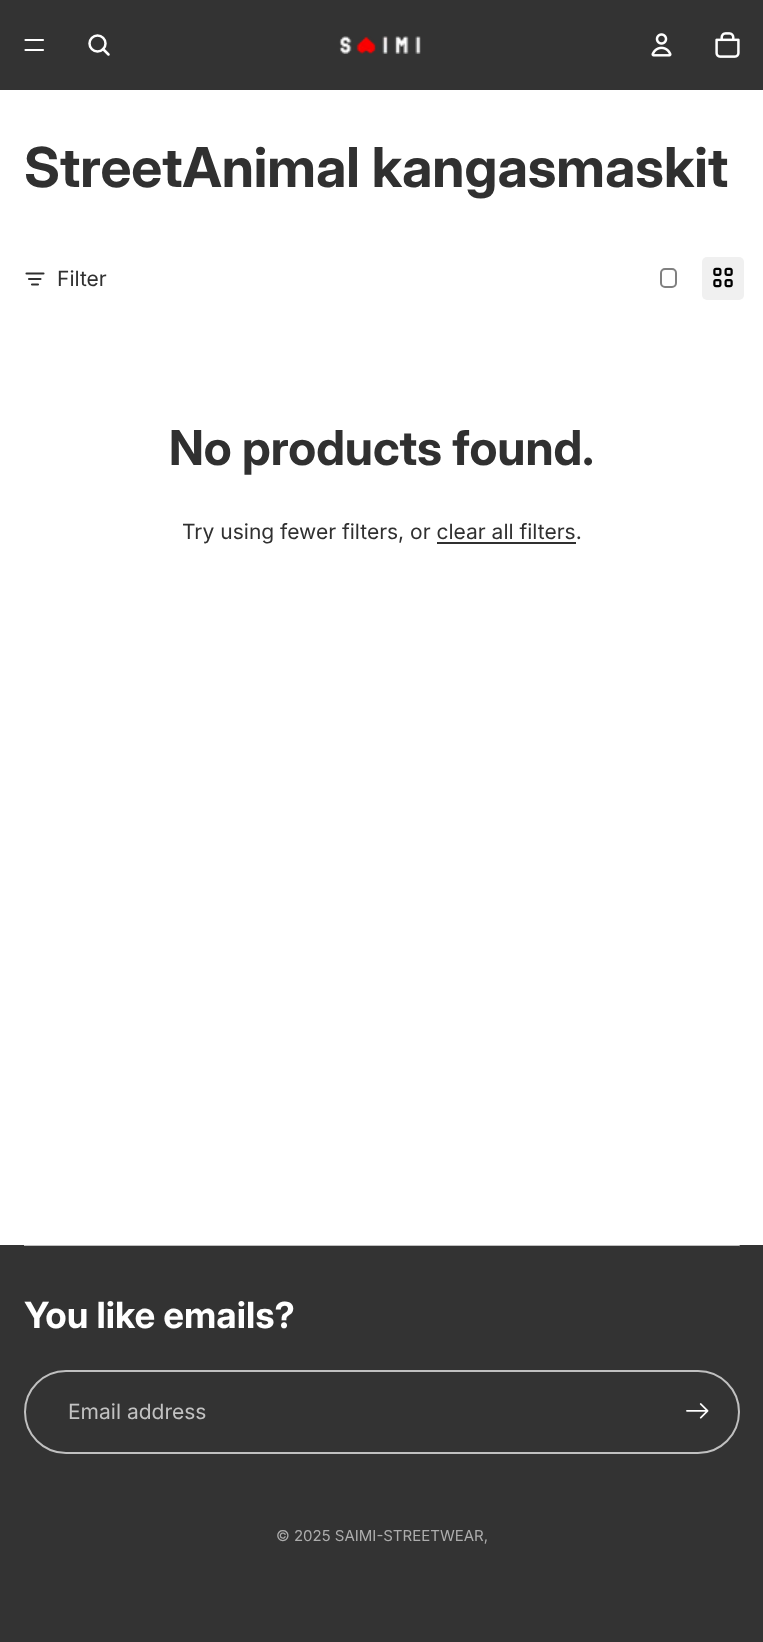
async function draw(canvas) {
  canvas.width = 763
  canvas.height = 1642
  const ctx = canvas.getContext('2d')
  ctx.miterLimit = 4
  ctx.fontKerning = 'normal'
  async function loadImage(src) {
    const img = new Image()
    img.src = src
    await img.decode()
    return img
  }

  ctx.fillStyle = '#fff'
  ctx.fillRect(0, 0, 763, 1642)
  ctx.fillStyle = '#333'
  ctx.fillRect(0, 0, 763, 90)
  ctx.beginPath()
  ctx.moveTo(25.5, 40)
  ctx.lineTo(43, 40)
  ctx.moveTo(25.5, 50)
  ctx.lineTo(43, 50)
  ctx.strokeStyle = '#fff'
  ctx.lineWidth = 2.2
  ctx.lineCap = 'round'
  ctx.stroke()
  ctx.beginPath()
  ctx.arc(97.5, 43.5, 8, 0, 2 * Math.PI)
  ctx.lineWidth = 2.5
  ctx.stroke()
  ctx.beginPath()
  ctx.moveTo(103, 49)
  ctx.lineTo(108.5, 54.5)
  ctx.lineJoin = 'round'
  ctx.stroke()
  ctx.drawImage(await loadImage('image0.png'), 339, 36, 82, 18)
  ctx.drawImage(await loadImage('image1.png'), 651, 33, 21, 24)
  ctx.drawImage(await loadImage('image2.png'), 715, 32, 25, 26)
  ctx.font = 'bold 55px Inter'
  ctx.fillStyle = '#303030'
  ctx.fillText('StreetAnimal kangasmaskit', 24, 187)
  ctx.beginPath()
  ctx.moveTo(43.5, 273.5)
  ctx.lineTo(26.5, 273.5)
  ctx.moveTo(40.5, 279)
  ctx.lineTo(29, 279)
  ctx.moveTo(32, 284.5)
  ctx.lineTo(38, 284.5)
  ctx.strokeStyle = '#303030'
  ctx.lineWidth = 2.1
  ctx.lineJoin = 'miter'
  ctx.stroke()
  ctx.font = '21px Inter'
  ctx.fillText('Filter', 57, 286)
  ctx.beginPath()
  ctx.roundRect(661, 269, 15, 18, 4)
  ctx.strokeStyle = '#808080'
  ctx.lineWidth = 2
  ctx.stroke()
  ctx.fillStyle = '#f0f0f0'
  ctx.beginPath()
  ctx.roundRect(702, 257, 42, 43, 5)
  ctx.fill()
  ctx.drawImage(await loadImage('image3.png'), 713, 267, 20, 21)
  ctx.font = 'bold 48px Inter'
  ctx.fillStyle = '#303030'
  ctx.fillText('No products found.', 169, 465)
  ctx.font = '21px Inter'
  ctx.fillText('Try using fewer filters, or clear all filters.', 182, 539)
  ctx.fillRect(437, 542, 139, 2)
  ctx.fillStyle = '#333'
  ctx.fillRect(0, 1245, 763, 397)
  ctx.fillStyle = '#c0c0c0'
  ctx.beginPath()
  ctx.moveTo(739.5, 1245)
  ctx.lineTo(739.5, 1246.5)
  ctx.lineTo(738, 1245)
  ctx.closePath()
  ctx.fill()
  ctx.fillStyle = '#ffffffb0'
  ctx.beginPath()
  ctx.moveTo(740, 1246)
  ctx.lineTo(24, 1246)
  ctx.lineTo(24, 1245)
  ctx.lineTo(738, 1245)
  ctx.closePath()
  ctx.fill()
  ctx.font = 'bold 36px "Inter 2"'
  ctx.fillStyle = '#fff'
  ctx.fillText('You like emails?', 24, 1328)
  ctx.beginPath()
  ctx.roundRect(25, 1371, 714, 82, 41)
  ctx.strokeStyle = '#c0c0c0'
  ctx.stroke()
  ctx.font = '21px Inter'
  ctx.fillStyle = '#c2c2c2'
  ctx.fillText('Email address', 68, 1419)
  ctx.drawImage(await loadImage('image4.png'), 686, 1403, 23, 16)
  ctx.font = '15px Inter'
  ctx.fillStyle = '#adadad'
  ctx.fillText('© 2025 SAIMI-STREETWEAR,', 276, 1541)
}

draw(document.querySelector('canvas'))
